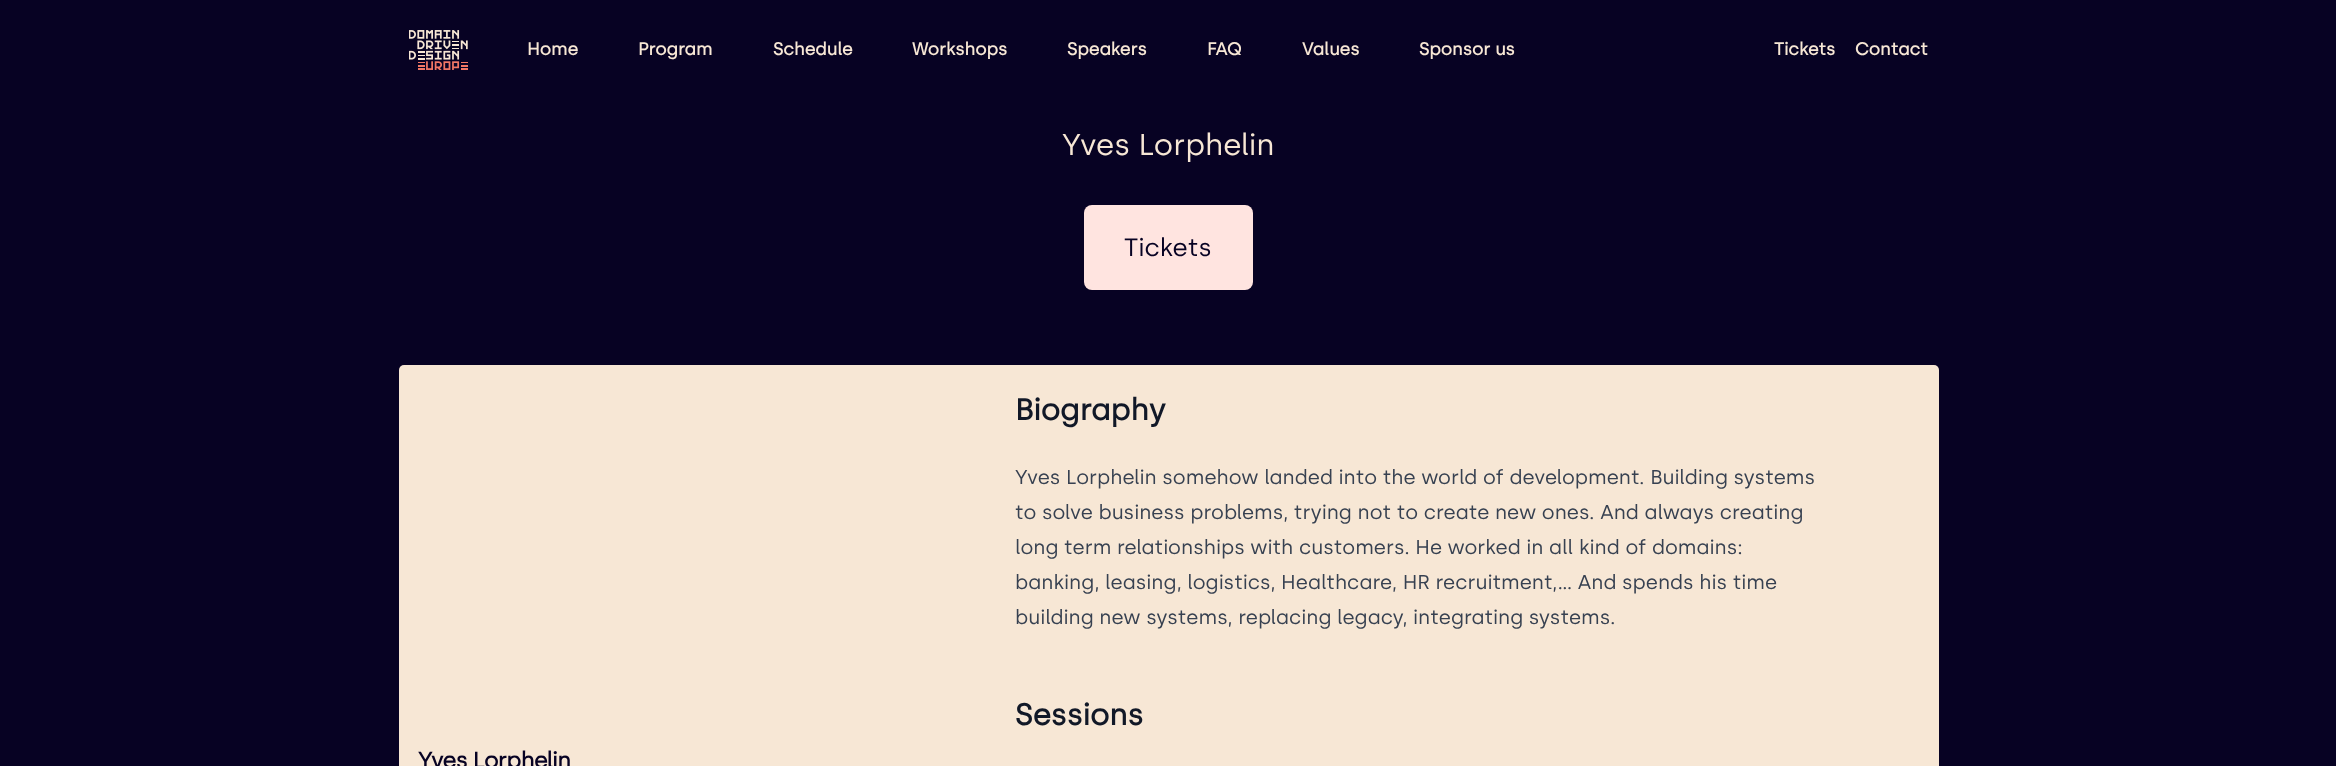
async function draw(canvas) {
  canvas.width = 2336
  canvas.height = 766
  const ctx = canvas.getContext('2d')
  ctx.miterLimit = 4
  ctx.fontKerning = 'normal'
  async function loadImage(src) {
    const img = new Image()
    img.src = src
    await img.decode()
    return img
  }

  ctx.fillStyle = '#070223'
  ctx.fillRect(0, 0, 2336, 766)
  ctx.drawImage(await loadImage('image0.png'), 409, 30, 59, 40)
  ctx.font = 'bold 17.5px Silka'
  ctx.fillStyle = '#f7e7d5'
  ctx.fillText('Home', 527, 55)
  ctx.fillText('Program', 638, 55)
  ctx.fillText('Schedule', 773, 55)
  ctx.fillText('Workshops', 912, 55)
  ctx.fillText('Speakers', 1067, 55)
  ctx.fillText('FAQ', 1207, 55)
  ctx.fillText('Values', 1302, 55)
  ctx.fillText('Sponsor us', 1419, 55)
  ctx.fillText('Tickets', 1774, 55)
  ctx.fillText('Contact', 1855, 55)
  ctx.font = '30px Silka'
  ctx.fillText('Yves Lorphelin', 1062, 155)
  ctx.fillStyle = '#ffe4e0'
  ctx.beginPath()
  ctx.roundRect(1084, 205, 169, 85, 8)
  ctx.fill()
  ctx.font = '25px Silka'
  ctx.fillStyle = '#070223'
  ctx.fillText('Tickets', 1124, 256)
  ctx.fillStyle = '#f7e7d5'
  ctx.beginPath()
  ctx.roundRect(399, 365, 1540, 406, 5)
  ctx.fill()
  ctx.font = 'bold 30px Silka'
  ctx.fillStyle = '#111827'
  ctx.fillText('Biography', 1015, 420)
  ctx.font = '20px Silka'
  ctx.fillStyle = '#374151'
  ctx.fillText('Yves Lorphelin somehow landed into the world of development. Building systems', 1015, 484)
  ctx.fillText('to solve business problems, trying not to create new ones. And always creating', 1015, 519)
  ctx.fillText('long term relationships with customers. He worked in all kind of domains:', 1015, 554)
  ctx.fillText('banking, leasing, logistics, Healthcare, HR recruitment,... And spends his time', 1015, 589)
  ctx.fillText('building new systems, replacing legacy, integrating systems.', 1015, 624)
  ctx.font = 'bold 30px Silka'
  ctx.fillStyle = '#111827'
  ctx.fillText('Sessions', 1015, 725)
  ctx.letterSpacing = '-0.5px'
  ctx.font = 'bold 22.5px Silka'
  ctx.fillStyle = '#070223'
  ctx.fillText('Yves Lorphelin', 418, 768)
}

draw(document.querySelector('canvas'))
